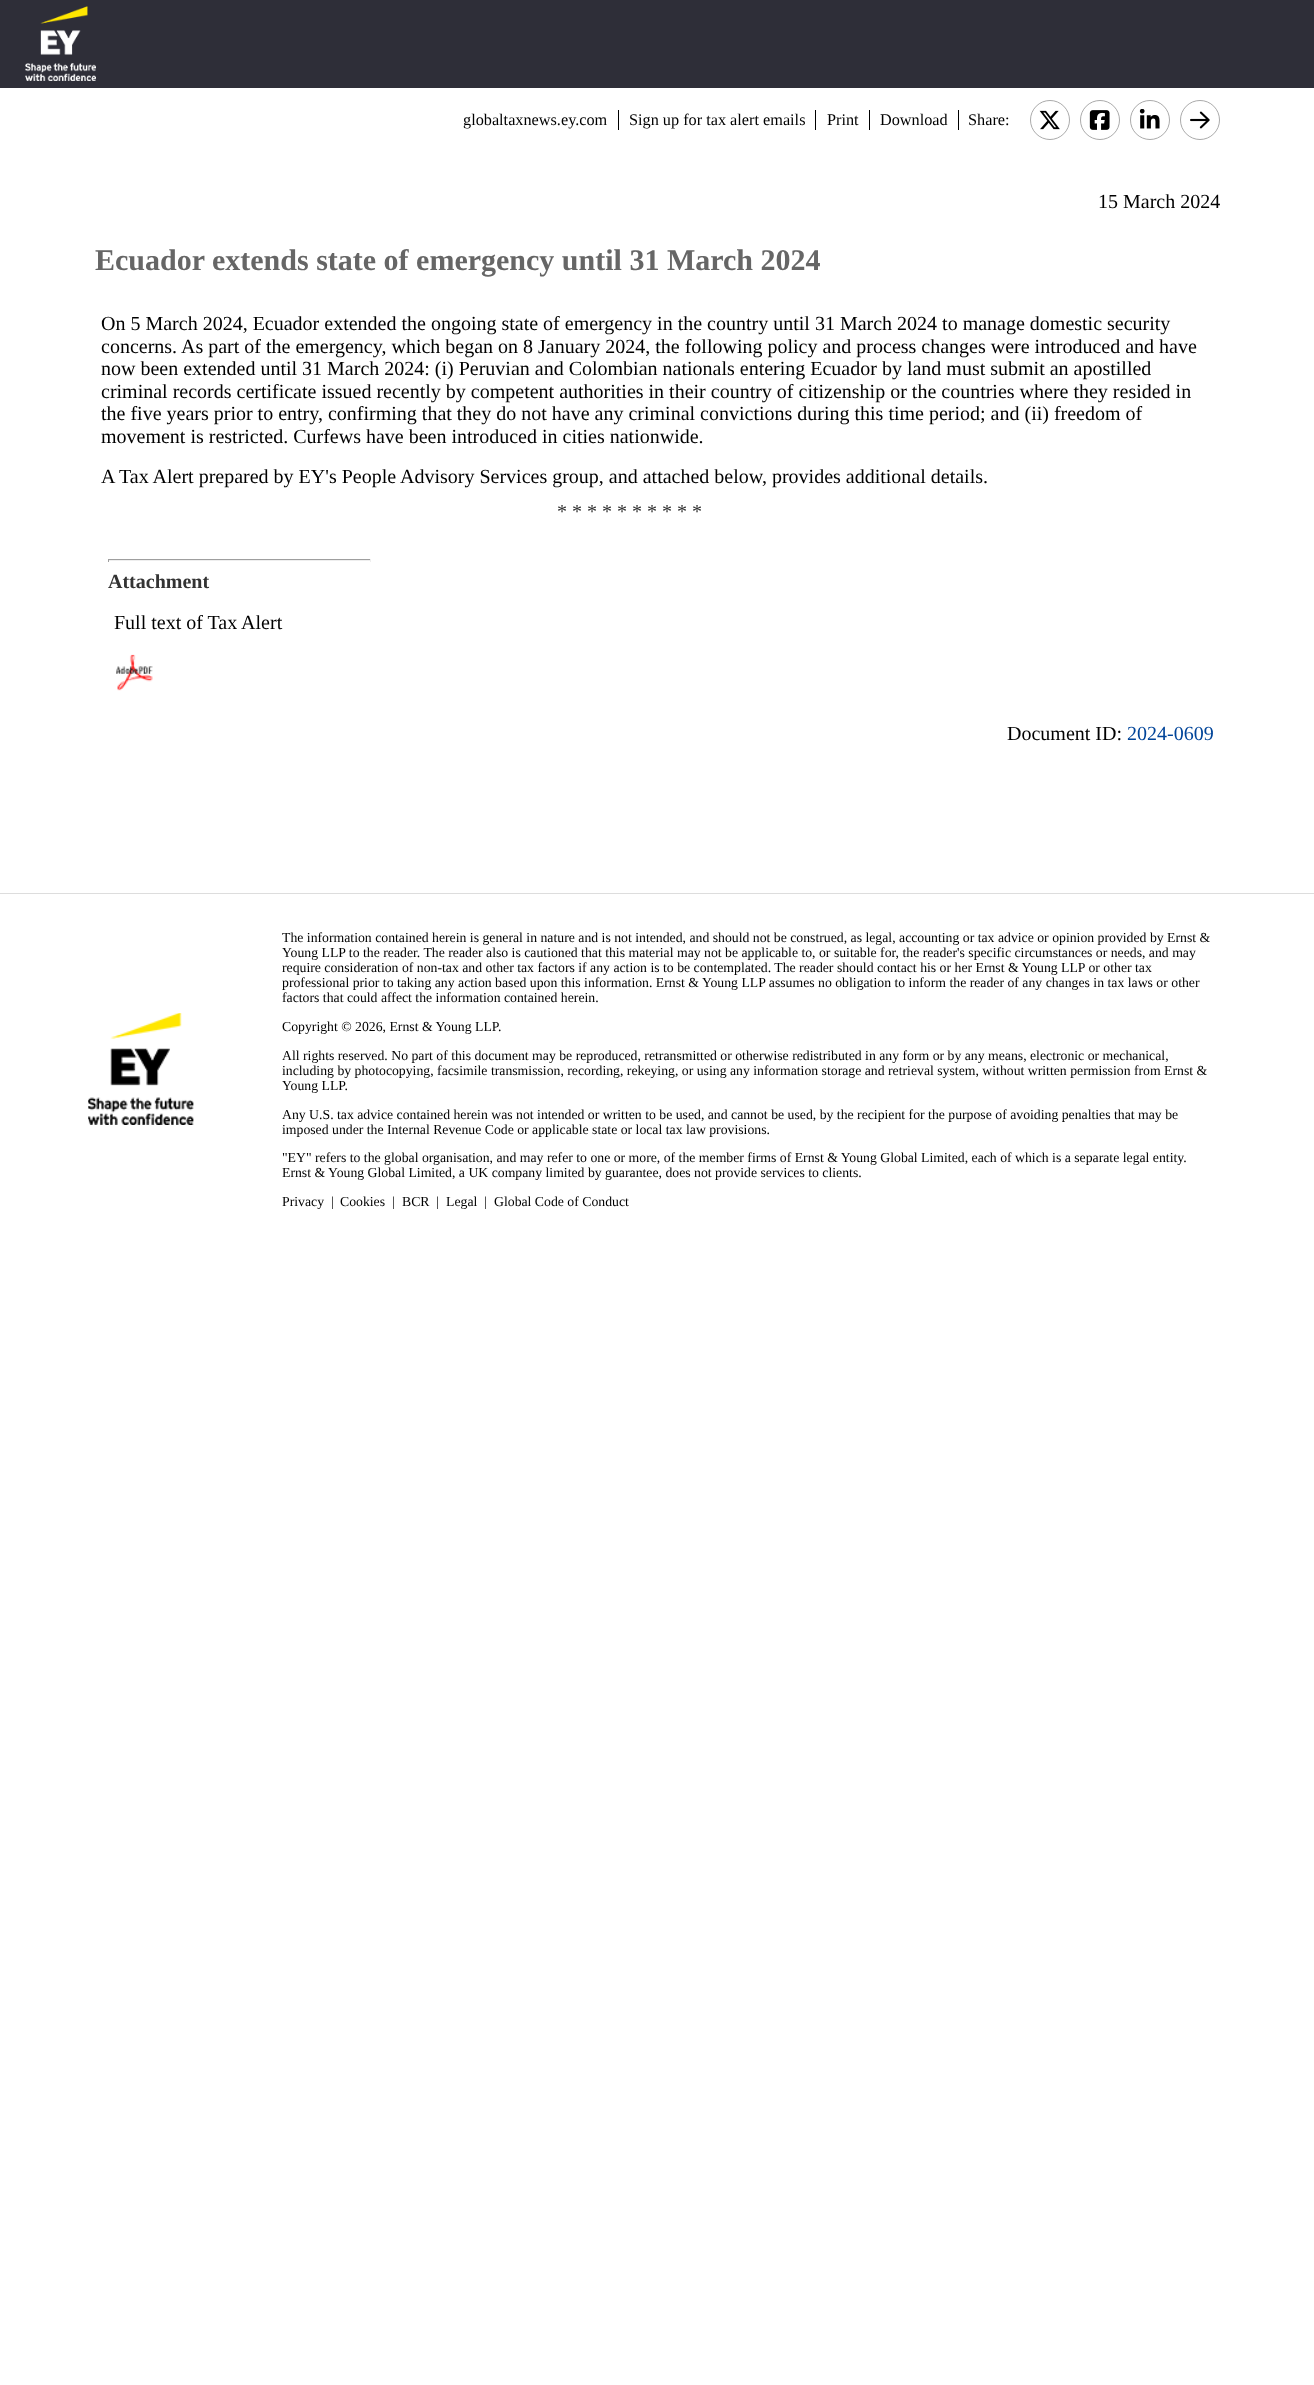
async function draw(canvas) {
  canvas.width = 1314
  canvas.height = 2385
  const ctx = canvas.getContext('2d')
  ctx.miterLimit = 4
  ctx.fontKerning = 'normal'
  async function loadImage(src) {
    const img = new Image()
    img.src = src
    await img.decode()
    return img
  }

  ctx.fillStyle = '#fff'
  ctx.fillRect(0, 0, 1314, 2385)
  ctx.fillStyle = '#2e2e38'
  ctx.fillRect(0, 0, 1314, 88)
  ctx.drawImage(await loadImage('image0.png'), 25, 6, 71, 75)
  ctx.font = '16.25px Liberation Serif'
  ctx.fillStyle = '#000'
  ctx.fillText('globaltaxnews.ey.com', 463, 125)
  ctx.fillRect(618, 110, 1, 20)
  ctx.fillText('Sign up for tax alert emails', 629, 125)
  ctx.fillRect(815, 110, 1, 20)
  ctx.fillText('Print', 827, 125)
  ctx.fillRect(869, 110, 1, 20)
  ctx.fillText('Download', 880, 125)
  ctx.fillRect(958, 110, 1, 20)
  ctx.fillText('Share:', 968, 125)
  ctx.beginPath()
  ctx.arc(1050, 120, 19.5, 0, 2 * Math.PI)
  ctx.strokeStyle = '#aaa'
  ctx.stroke()
  ctx.drawImage(await loadImage('image1.png'), 1039, 110, 21, 20)
  ctx.beginPath()
  ctx.arc(1100, 120, 19.5, 0, 2 * Math.PI)
  ctx.stroke()
  ctx.drawImage(await loadImage('image2.png'), 1089, 110, 21, 20)
  ctx.beginPath()
  ctx.arc(1150, 120, 19.5, 0, 2 * Math.PI)
  ctx.stroke()
  ctx.drawImage(await loadImage('image3.png'), 1139, 109, 21, 20)
  ctx.beginPath()
  ctx.arc(1200, 120, 19.5, 0, 2 * Math.PI)
  ctx.stroke()
  ctx.drawImage(await loadImage('image4.png'), 1190, 111, 20, 18)
  ctx.font = '20px Liberation Serif'
  ctx.fillText('15 March 2024', 1098, 208)
  ctx.font = 'bold 30px Liberation Serif'
  ctx.fillStyle = '#666'
  ctx.fillText('Ecuador extends state of emergency until 31 March 2024', 95, 270)
  ctx.font = '20px Liberation Serif'
  ctx.fillStyle = '#000'
  ctx.fillText('On 5 March 2024, Ecuador extended the ongoing state of emergency in the country until 31 March 2024 to manage domestic security', 101, 330)
  ctx.fillText('concerns. As part of the emergency, which began on 8 January 2024, the following policy and process changes were introduced and have', 101, 353)
  ctx.fillText('now been extended until 31 March 2024: (i) Peruvian and Colombian nationals entering Ecuador by land must submit an apostilled', 101, 375)
  ctx.fillText('criminal records certificate issued recently by competent authorities in their country of citizenship or the countries where they resided in', 101, 398)
  ctx.fillText('the five years prior to entry, confirming that they do not have any criminal convictions during this time period; and (ii) freedom of', 101, 420)
  ctx.fillText('movement is restricted. Curfews have been introduced in cities nationwide.', 101, 443)
  ctx.fillText('A Tax Alert prepared by EY\'s People Advisory Services group, and attached below, provides additional details.', 101, 483)
  ctx.fillStyle = '#333'
  ctx.fillText('* * * * * * * * * *', 557, 518)
  ctx.fillStyle = '#9f9f9f'
  ctx.fillRect(108, 559, 263, 1)
  ctx.fillStyle = '#eee'
  ctx.fillRect(370, 559, 1, 3)
  ctx.fillRect(108, 560, 263, 1)
  ctx.fillStyle = '#9f9f9f'
  ctx.fillRect(108, 559, 1, 3)
  ctx.font = 'bold 20px Liberation Serif'
  ctx.fillStyle = '#333'
  ctx.fillText('Attachment', 108, 588)
  ctx.font = '20px Liberation Serif'
  ctx.fillStyle = '#000'
  ctx.fillText('Full text of Tax Alert', 114, 629)
  ctx.drawImage(await loadImage('image5.png'), 116, 654, 37, 37)
  ctx.fillText('Document ID:', 1007, 740)
  ctx.fillStyle = '#049'
  ctx.fillText('2024-0609', 1127, 740)
  ctx.fillStyle = '#ddd'
  ctx.fillRect(0, 893, 1314, 1)
  ctx.drawImage(await loadImage('image6.png'), 88, 1013, 106, 112)
  ctx.font = '13.75px Liberation Serif'
  ctx.fillStyle = '#000'
  ctx.fillText('The information contained herein is general in nature and is not intended, and should not be construed, as legal, accounting or tax advice or opinion provided by Ernst &', 282, 942)
  ctx.fillText('Young LLP to the reader. The reader also is cautioned that this material may not be applicable to, or suitable for, the reader\'s specific circumstances or needs, and may', 282, 957)
  ctx.fillText('require consideration of non-tax and other tax factors if any action is to be contemplated. The reader should contact his or her Ernst & Young LLP or other tax', 282, 972)
  ctx.fillText('professional prior to taking any action based upon this information. Ernst & Young LLP assumes no obligation to inform the reader of any changes in tax laws or other', 282, 987)
  ctx.fillText('factors that could affect the information contained herein.', 282, 1002)
  ctx.fillText('Copyright © 2026, Ernst & Young LLP.', 282, 1031)
  ctx.fillText('All rights reserved. No part of this document may be reproduced, retransmitted or otherwise redistributed in any form or by any means, electronic or mechanical,', 282, 1060)
  ctx.fillText('including by photocopying, facsimile transmission, recording, rekeying, or using any information storage and retrieval system, without written permission from Ernst &', 282, 1075)
  ctx.fillText('Young LLP.', 282, 1090)
  ctx.fillText('Any U.S. tax advice contained herein was not intended or written to be used, and cannot be used, by the recipient for the purpose of avoiding penalties that may be', 282, 1119)
  ctx.fillText('imposed under the Internal Revenue Code or applicable state or local tax law provisions.', 282, 1134)
  ctx.fillText('"EY" refers to the global organisation, and may refer to one or more, of the member firms of Ernst & Young Global Limited, each of which is a separate legal entity.', 282, 1162)
  ctx.fillText('Ernst & Young Global Limited, a UK company limited by guarantee, does not provide services to clients.', 282, 1177)
  ctx.fillText('Privacy', 282, 1206)
  ctx.fillText('|', 331, 1206)
  ctx.fillText('Cookies', 340, 1206)
  ctx.fillText('|', 392, 1206)
  ctx.fillText('BCR', 402, 1206)
  ctx.fillText('|', 436, 1206)
  ctx.fillText('Legal', 446, 1206)
  ctx.fillText('|', 484, 1206)
  ctx.fillText('Global Code of Conduct', 494, 1206)
}

draw(document.querySelector('canvas'))
